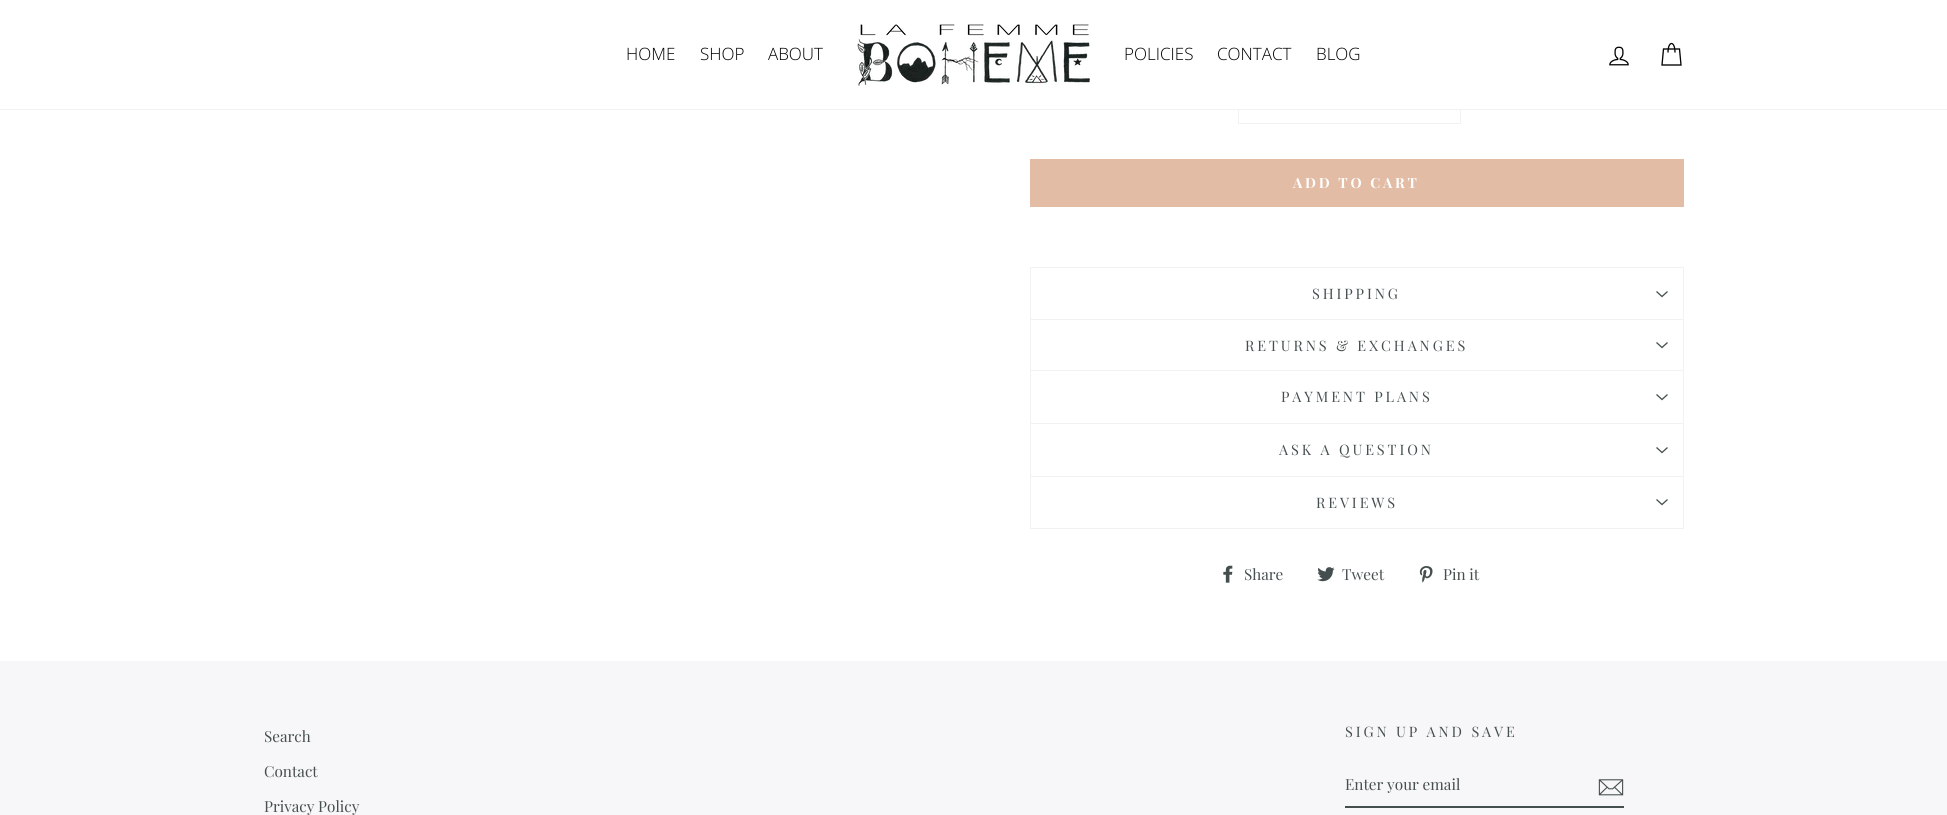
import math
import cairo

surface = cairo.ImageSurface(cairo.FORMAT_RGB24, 1947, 815)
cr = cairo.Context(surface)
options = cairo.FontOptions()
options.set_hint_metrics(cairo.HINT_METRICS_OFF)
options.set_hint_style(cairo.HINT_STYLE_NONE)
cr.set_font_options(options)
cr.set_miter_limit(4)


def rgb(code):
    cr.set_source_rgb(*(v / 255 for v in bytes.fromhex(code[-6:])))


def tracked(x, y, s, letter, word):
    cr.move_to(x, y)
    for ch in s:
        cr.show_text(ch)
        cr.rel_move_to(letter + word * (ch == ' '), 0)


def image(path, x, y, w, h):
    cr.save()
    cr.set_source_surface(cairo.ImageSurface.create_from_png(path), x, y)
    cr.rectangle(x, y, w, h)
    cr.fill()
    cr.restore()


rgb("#ffffff")
cr.paint()
cr.rectangle(1238.5, 79.5, 222, 44)
rgb("#f2f2f2")
cr.set_line_width(1)
cr.stroke()
rgb("#ffffff")
cr.rectangle(1238, 79, 223, 30)
cr.fill()
rgb("#f2f2f2")
cr.rectangle(0, 109, 1947, 1)
cr.fill()
image("img/1.png", 857, 24, 233, 62)
image("img/2.png", 1609, 46, 20, 20)
cr.new_path()
cr.move_to(1668, 52.5)
cr.curve_to(1668, 40.5, 1675, 40.5, 1675, 52.5)
cr.move_to(1663.5, 49)
cr.line_to(1679.5, 49)
cr.line_to(1681, 65)
cr.line_to(1662, 65)
cr.close_path()
rgb("#000000")
cr.set_line_width(1.3)
cr.stroke()
for x, y, w, h, color in [
    (1030, 159, 654, 48, "#e2bca5"),
    (1030, 528, 654, 1, "#f2f2f2"),
    (1030, 267, 654, 1, "#f2f2f2"),
    (1683, 267, 1, 53, "#f2f2f2"),
    (1030, 267, 1, 53, "#f2f2f2"),
]:
    rgb(color)
    cr.rectangle(x, y, w, h)
    cr.fill()
cr.new_path()
cr.move_to(1656.5, 291.5)
cr.line_to(1662, 296.5)
cr.line_to(1667.5, 291.5)
rgb("#454e4e")
cr.stroke()
for x, y, w, h, color in [
    (1030, 319, 654, 1, "#f2f2f2"),
    (1683, 319, 1, 52, "#f2f2f2"),
    (1030, 319, 1, 52, "#f2f2f2"),
]:
    rgb(color)
    cr.rectangle(x, y, w, h)
    cr.fill()
cr.new_path()
cr.move_to(1656.5, 342.5)
cr.line_to(1662, 347.5)
cr.line_to(1667.5, 342.5)
rgb("#454e4e")
cr.stroke()
for x, y, w, h, color in [
    (1030, 370, 654, 1, "#f2f2f2"),
    (1683, 370, 1, 53, "#f2f2f2"),
    (1030, 370, 1, 53, "#f2f2f2"),
]:
    rgb(color)
    cr.rectangle(x, y, w, h)
    cr.fill()
cr.new_path()
cr.move_to(1656.5, 394.5)
cr.line_to(1662, 399.5)
cr.line_to(1667.5, 394.5)
rgb("#454e4e")
cr.stroke()
for x, y, w, h, color in [
    (1030, 423, 654, 1, "#f2f2f2"),
    (1683, 423, 1, 53, "#f2f2f2"),
    (1030, 423, 1, 53, "#f2f2f2"),
]:
    rgb(color)
    cr.rectangle(x, y, w, h)
    cr.fill()
cr.new_path()
cr.move_to(1656.5, 447.5)
cr.line_to(1662, 452.5)
cr.line_to(1667.5, 447.5)
rgb("#454e4e")
cr.stroke()
for x, y, w, h, color in [
    (1030, 476, 654, 1, "#f2f2f2"),
    (1683, 476, 1, 52, "#f2f2f2"),
    (1030, 476, 1, 52, "#f2f2f2"),
]:
    rgb(color)
    cr.rectangle(x, y, w, h)
    cr.fill()
cr.new_path()
cr.move_to(1656.5, 499.5)
cr.line_to(1662, 504.5)
cr.line_to(1667.5, 499.5)
rgb("#454e4e")
cr.stroke()
image("img/3.png", 1223, 565, 10, 18)
image("img/4.png", 1317, 567, 18, 15)
image("img/5.png", 1419, 566, 14, 17)
rgb("#f7f7f9")
cr.rectangle(0, 661, 1947, 154)
cr.fill()
rgb("#454e4e")
cr.rectangle(1345, 806, 279, 2)
cr.fill()
image("img/6.png", 1598, 779, 26, 17)
cr.select_font_face("Open Sans Light")
cr.set_font_size(17)
rgb("#000000")
for x, y, s in [
    (626, 60, "HOME"),
    (700, 60, "SHOP"),
    (768, 60, "ABOUT"),
    (1124, 60, "POLICIES"),
    (1217, 60, "CONTACT"),
    (1316, 60, "BLOG"),
]:
    cr.move_to(x, y)
    cr.show_text(s)
cr.select_font_face("Playfair Display", cairo.FONT_SLANT_NORMAL, cairo.FONT_WEIGHT_BOLD)
cr.set_font_size(14)
rgb("#ffffff")
tracked(1293, 188, "ADD TO CART", 2.75, 0)
cr.select_font_face("Playfair Display")
cr.set_font_size(14.4)
rgb("#454e4e")
for x, y, s in [
    (1312, 299, "SHIPPING"),
    (1245, 351, "RETURNS & EXCHANGES"),
    (1281, 402, "PAYMENT PLANS"),
    (1279, 455, "ASK A QUESTION"),
    (1316, 508, "REVIEWS"),
]:
    tracked(x, y, s, 2.9, 0)
cr.set_font_size(15.25)
for x, y, s in [
    (1244, 580, "Share"),
    (1342, 580, "Tweet"),
    (1443, 580, "Pin it"),
    (264, 742, "Search"),
    (264, 777, "Contact"),
    (264, 812, "Privacy Policy"),
]:
    cr.move_to(x, y)
    cr.show_text(s)
cr.set_font_size(14.4)
tracked(1345, 737, "SIGN UP AND SAVE", 2.9, 0)
cr.set_font_size(15.25)
cr.move_to(1345, 790)
cr.show_text("Enter your email")
surface.write_to_png("page.png")
